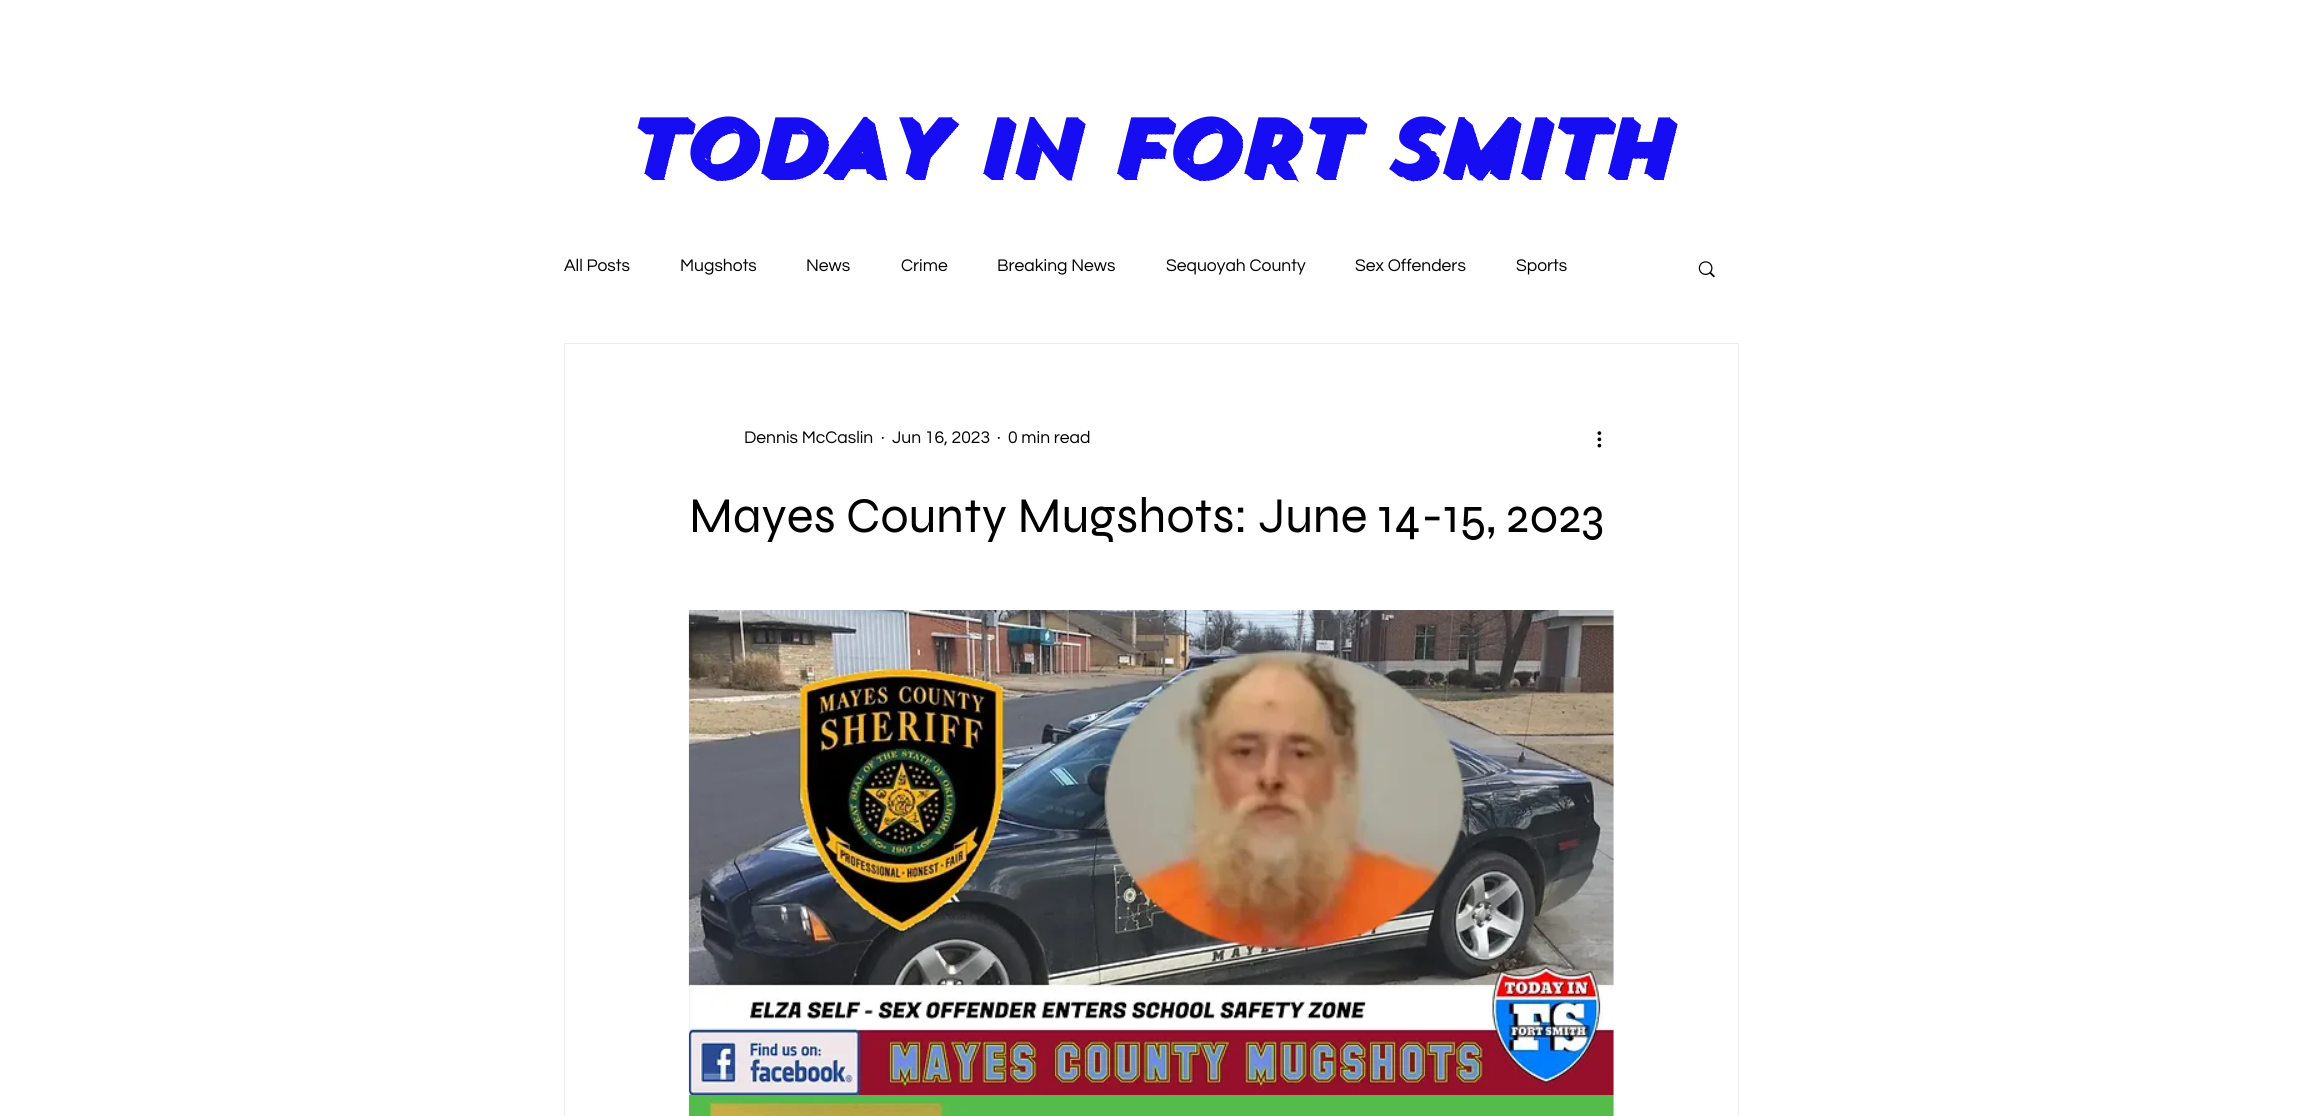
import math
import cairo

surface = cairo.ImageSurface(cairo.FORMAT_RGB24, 2302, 1116)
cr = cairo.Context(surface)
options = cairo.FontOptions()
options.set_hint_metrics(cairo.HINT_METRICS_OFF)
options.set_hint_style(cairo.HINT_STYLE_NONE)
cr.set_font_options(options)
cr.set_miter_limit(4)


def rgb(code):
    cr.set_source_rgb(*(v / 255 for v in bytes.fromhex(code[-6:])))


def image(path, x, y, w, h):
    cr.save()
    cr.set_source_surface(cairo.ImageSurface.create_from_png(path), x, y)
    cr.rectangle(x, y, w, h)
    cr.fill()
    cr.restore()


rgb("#ffffff")
cr.paint()
image("img/1.png", 1698, 261, 17, 17)
cr.rectangle(564.5, 343.5, 1174, 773)
rgb("#eeecec")
cr.set_line_width(1)
cr.stroke()
image("img/2.png", 1597, 431, 5, 17)
image("img/3.png", 688, 610, 926, 485)
image("img/4.png", 688, 1095, 926, 21)
cr.select_font_face("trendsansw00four", cairo.FONT_SLANT_ITALIC, cairo.FONT_WEIGHT_BOLD)
cr.set_font_size(77.5)
rgb("#170df2")
cr.move_to(622, 174)
cr.show_text("TODAY IN FORT SMITH")
cr.select_font_face("Questrial")
cr.set_font_size(17.5)
rgb("#000000")
for x, y, s in [
    (564, 271, "All Posts"),
    (680, 271, "Mugshots"),
    (806, 271, "News"),
    (901, 271, "Crime"),
    (997, 271, "Breaking News"),
    (1166, 271, "Sequoyah County"),
    (1355, 271, "Sex Offenders"),
    (1516, 271, "Sports"),
    (744, 443, "Dennis McCaslin"),
    (881, 443, "·"),
    (892, 443, "Jun 16, 2023"),
    (997, 443, "·"),
    (1008, 443, "0 min read"),
]:
    cr.move_to(x, y)
    cr.show_text(s)
cr.select_font_face("Syne")
cr.set_font_size(50)
cr.move_to(689, 532)
cr.show_text("Mayes County Mugshots: June 14-15, 2023")
surface.write_to_png("page.png")
